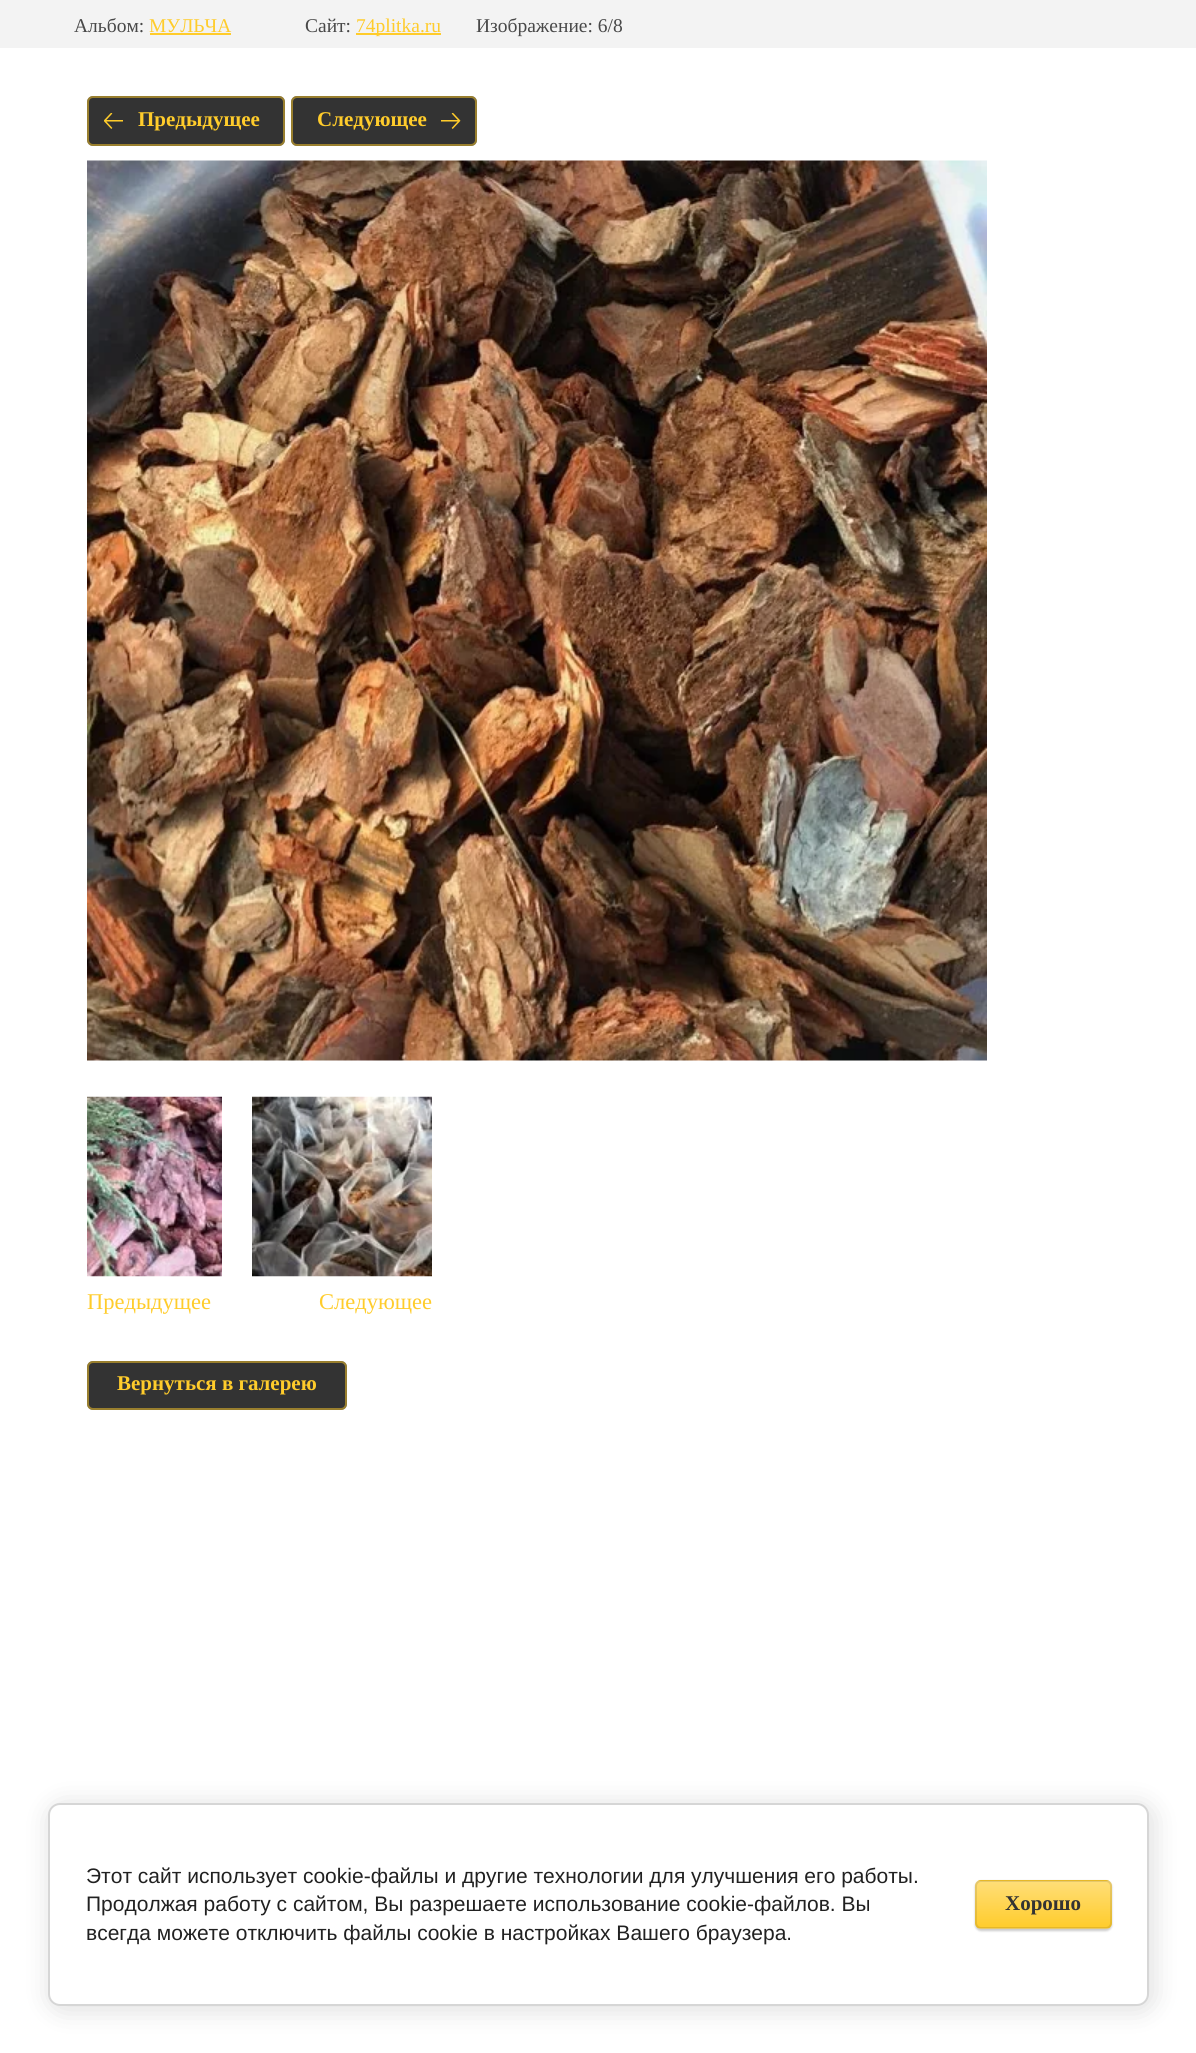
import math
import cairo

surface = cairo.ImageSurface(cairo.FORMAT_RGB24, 1196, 2053)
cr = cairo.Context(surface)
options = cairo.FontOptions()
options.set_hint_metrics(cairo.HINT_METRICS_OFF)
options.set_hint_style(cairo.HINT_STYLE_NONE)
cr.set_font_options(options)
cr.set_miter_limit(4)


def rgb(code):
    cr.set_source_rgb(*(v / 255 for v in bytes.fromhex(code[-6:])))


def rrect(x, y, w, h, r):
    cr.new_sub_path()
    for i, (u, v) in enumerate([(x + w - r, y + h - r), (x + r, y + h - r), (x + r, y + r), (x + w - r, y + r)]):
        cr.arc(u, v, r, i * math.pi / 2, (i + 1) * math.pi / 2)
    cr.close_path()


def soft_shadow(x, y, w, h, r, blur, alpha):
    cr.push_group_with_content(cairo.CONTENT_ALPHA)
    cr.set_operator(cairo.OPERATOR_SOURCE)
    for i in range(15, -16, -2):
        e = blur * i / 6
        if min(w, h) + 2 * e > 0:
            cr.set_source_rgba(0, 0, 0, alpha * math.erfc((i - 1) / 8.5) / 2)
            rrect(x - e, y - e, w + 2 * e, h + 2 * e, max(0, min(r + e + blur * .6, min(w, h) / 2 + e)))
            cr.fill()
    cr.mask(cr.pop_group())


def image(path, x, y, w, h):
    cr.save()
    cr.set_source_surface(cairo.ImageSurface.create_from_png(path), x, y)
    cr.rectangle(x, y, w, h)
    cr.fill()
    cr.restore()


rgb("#ffffff")
cr.paint()
for x, y, w, h, color in [
    (0, 0, 1196, 48, "#f3f3f3"),
    (150, 33, 81, 2, "#ffcc2b"),
    (356, 33, 85, 2, "#ffcc2b"),
]:
    rgb(color)
    cr.rectangle(x, y, w, h)
    cr.fill()
rgb("#333333")
rrect(87, 96, 198, 50, 6)
cr.fill()
rrect(88, 97, 196, 48, 5)
cr.set_source_rgba(1, 0.8, 0.169, 0.5)
cr.stroke()
image("img/1.png", 104, 113, 19, 16)
rgb("#333333")
rrect(291, 96, 186, 50, 6)
cr.fill()
rrect(292, 97, 184, 48, 5)
cr.set_source_rgba(1, 0.8, 0.169, 0.5)
cr.stroke()
image("img/2.png", 441, 113, 20, 16)
image("img/3.png", 87, 160, 900, 901)
image("img/4.png", 87, 1096, 135, 181)
image("img/5.png", 252, 1096, 180, 181)
rgb("#333333")
rrect(87, 1361, 260, 49, 6)
cr.fill()
rrect(88, 1362, 258, 47, 5)
cr.set_source_rgba(1, 0.8, 0.169, 0.5)
cr.stroke()
rgb("#000000")
soft_shadow(51, 1806, 1101, 203, 12, 13.5, 0.14)
rgb("#ffffff")
rrect(49, 1804, 1099, 201, 11)
cr.fill_preserve()
rgb("#d6d6d6")
cr.stroke()
rgb("#000000")
soft_shadow(975, 1881, 137, 50, 6, 1, 0.2)
cr.save()
rrect(975, 1880, 137, 49, 6)
cr.clip()
gradient = cairo.LinearGradient(1043, 1835, 1043, 1881)
gradient.add_color_stop_rgba(0, 1, 0.871, 0.471, 1)
gradient.add_color_stop_rgba(1, 1, 0.8, 0.169, 1)
cr.set_source(gradient)
cr.rectangle(975, 1880, 137, 1)
cr.fill()
gradient = cairo.LinearGradient(1043, 1881, 1043, 1928)
gradient.add_color_stop_rgba(0, 1, 0.871, 0.471, 1)
gradient.add_color_stop_rgba(1, 1, 0.8, 0.169, 1)
cr.set_source(gradient)
cr.rectangle(975, 1881, 137, 47)
cr.fill()
gradient = cairo.LinearGradient(1043, 1928, 1043, 1974)
gradient.add_color_stop_rgba(0, 1, 0.871, 0.471, 1)
gradient.add_color_stop_rgba(1, 1, 0.8, 0.169, 1)
cr.set_source(gradient)
cr.rectangle(975, 1928, 137, 1)
cr.fill()
cr.restore()
rrect(976, 1881, 135, 47, 5)
cr.set_source_rgba(0, 0, 0, 0.1)
cr.stroke()
cr.select_font_face("Liberation Serif")
cr.set_font_size(19.5)
rgb("#484848")
cr.move_to(74, 32)
cr.show_text("Альбом:")
rgb("#ffcc2b")
cr.move_to(149, 32)
cr.show_text("МУЛЬЧА")
rgb("#484848")
cr.move_to(305, 32)
cr.show_text("Сайт:")
rgb("#ffcc2b")
cr.move_to(356, 32)
cr.show_text("74plitka.ru")
rgb("#484848")
cr.move_to(476, 32)
cr.show_text("Изображение: 6/8")
cr.select_font_face("Liberation Serif", cairo.FONT_SLANT_NORMAL, cairo.FONT_WEIGHT_BOLD)
cr.set_font_size(21)
rgb("#ffcc2b")
cr.move_to(138, 126)
cr.show_text("Предыдущее")
cr.move_to(317, 126)
cr.show_text("Следующее")
cr.select_font_face("Liberation Serif")
cr.set_font_size(22.5)
cr.move_to(87, 1309)
cr.show_text("Предыдущее")
cr.move_to(319, 1309)
cr.show_text("Следующее")
cr.select_font_face("Liberation Serif", cairo.FONT_SLANT_NORMAL, cairo.FONT_WEIGHT_BOLD)
cr.set_font_size(21)
cr.move_to(117, 1390)
cr.show_text("Вернуться в галерею")
cr.select_font_face("Liberation Sans")
rgb("#212121")
for x, y, s in [
    (86, 1883, "Этот сайт использует cookie-файлы и другие технологии для улучшения его работы."),
    (86, 1911, "Продолжая работу с сайтом, Вы разрешаете использование cookie-файлов. Вы"),
    (86, 1940, "всегда можете отключить файлы cookie в настройках Вашего браузера."),
]:
    cr.move_to(x, y)
    cr.show_text(s)
cr.select_font_face("Liberation Serif", cairo.FONT_SLANT_NORMAL, cairo.FONT_WEIGHT_BOLD)
rgb("#333333")
cr.move_to(1005, 1910)
cr.show_text("Хорошо")
surface.write_to_png("page.png")
